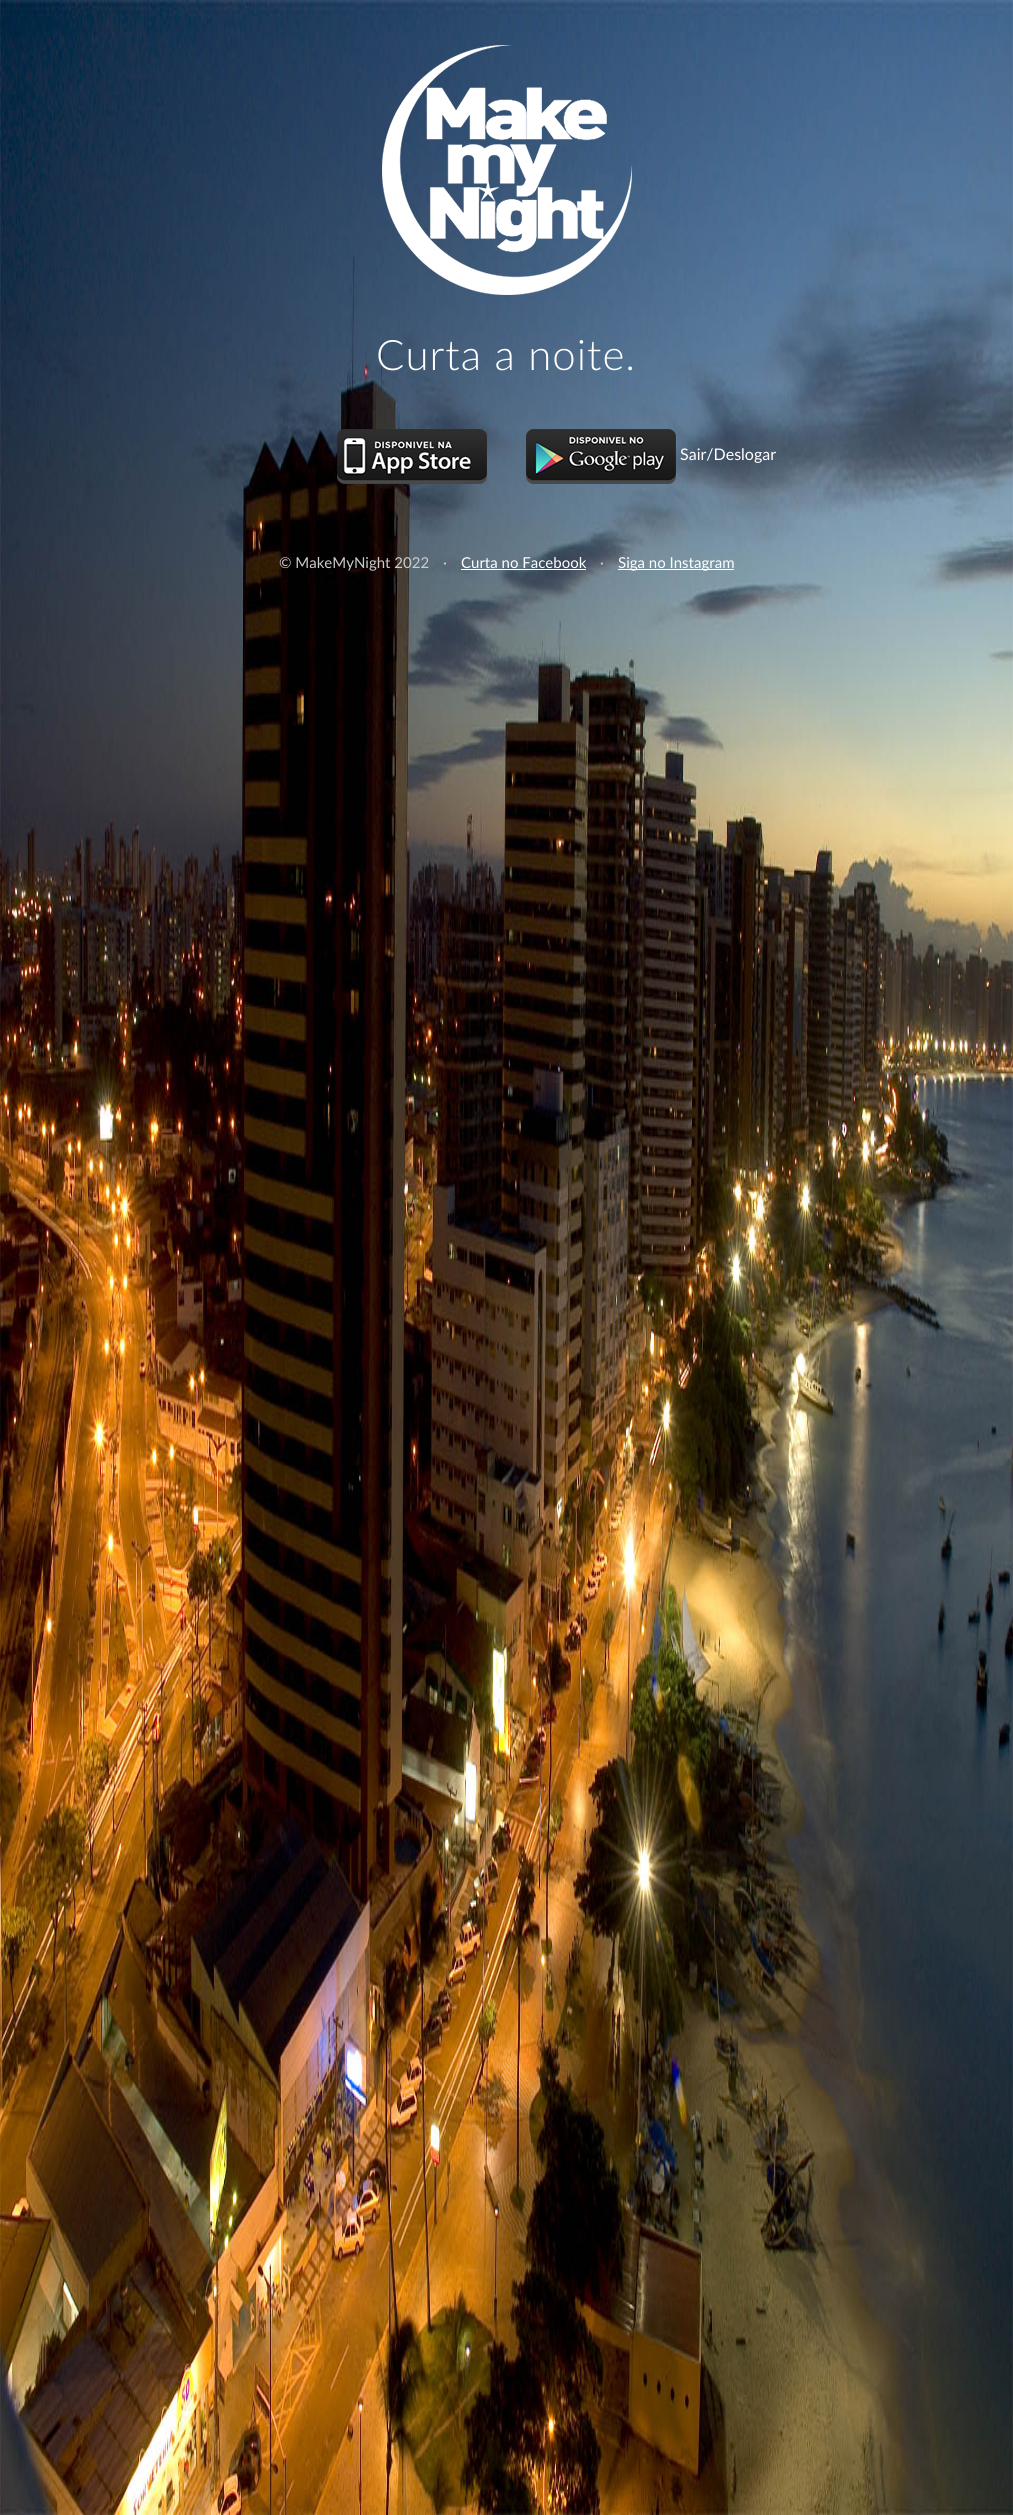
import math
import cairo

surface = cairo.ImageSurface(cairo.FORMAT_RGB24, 1013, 2515)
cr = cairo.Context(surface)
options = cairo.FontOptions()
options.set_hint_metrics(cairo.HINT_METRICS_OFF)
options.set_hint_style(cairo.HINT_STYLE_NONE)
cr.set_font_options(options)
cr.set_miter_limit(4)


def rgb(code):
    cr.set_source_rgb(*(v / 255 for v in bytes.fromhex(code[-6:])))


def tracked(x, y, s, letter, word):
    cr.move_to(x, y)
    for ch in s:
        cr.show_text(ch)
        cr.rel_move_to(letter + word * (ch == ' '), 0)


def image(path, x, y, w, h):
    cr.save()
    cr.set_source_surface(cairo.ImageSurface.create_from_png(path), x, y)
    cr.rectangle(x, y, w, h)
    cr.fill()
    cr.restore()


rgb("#ffffff")
cr.paint()
image("img/1.png", 0, 0, 1013, 2515)
image("img/2.png", 382, 45, 250, 250)
image("img/3.png", 337, 429, 150, 55)
image("img/4.png", 526, 429, 150, 55)
rgb("#ffffff")
cr.rectangle(461, 569, 125, 1)
cr.fill()
cr.rectangle(618, 569, 116, 1)
cr.fill()
cr.select_font_face("Lato Light")
cr.set_font_size(42)
tracked(376, 370, "Curta a noite.", 1, 0)
cr.select_font_face("Lato")
cr.set_font_size(16)
cr.move_to(680, 460)
cr.show_text("Sair/Deslogar")
cr.set_font_size(15)
rgb("#cccccc")
cr.move_to(279, 568)
cr.show_text("© MakeMyNight 2022")
cr.move_to(443, 568)
cr.show_text("·")
rgb("#ffffff")
cr.move_to(461, 568)
cr.show_text("Curta no Facebook")
rgb("#cccccc")
cr.move_to(600, 568)
cr.show_text("·")
rgb("#ffffff")
cr.move_to(618, 568)
cr.show_text("Siga no Instagram")
surface.write_to_png("page.png")
